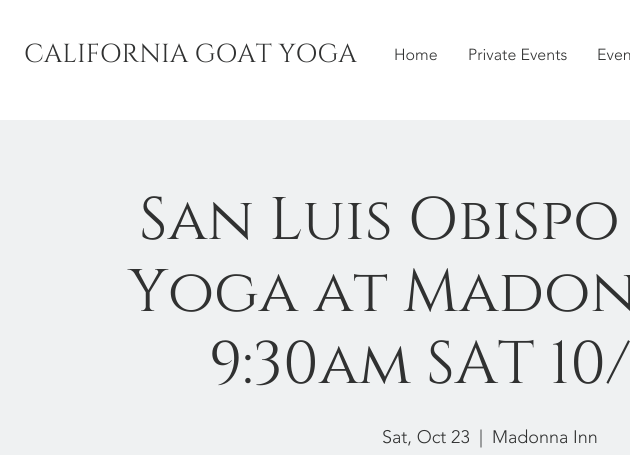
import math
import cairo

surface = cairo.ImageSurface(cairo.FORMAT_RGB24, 630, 455)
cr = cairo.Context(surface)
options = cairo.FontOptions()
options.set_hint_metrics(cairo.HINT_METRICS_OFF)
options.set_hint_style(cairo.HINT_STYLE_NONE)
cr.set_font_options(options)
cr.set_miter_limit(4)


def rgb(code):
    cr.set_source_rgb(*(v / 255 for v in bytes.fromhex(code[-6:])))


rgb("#ffffff")
cr.paint()
rgb("#eff1f2")
cr.rectangle(0, 120, 630, 335)
cr.fill()
cr.select_font_face("Cinzel")
cr.set_font_size(26)
rgb("#303131")
cr.move_to(24, 62)
cr.show_text("CALIFORNIA GOAT YOGA")
cr.select_font_face("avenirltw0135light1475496 Light")
cr.set_font_size(16)
for x, y, s in [
    (394, 60, "Home"),
    (468, 60, "Private Events"),
    (597, 60, "Even"),
]:
    cr.move_to(x, y)
    cr.show_text(s)
cr.select_font_face("Cinzel")
cr.set_font_size(60)
for x, y, s in [
    (139, 239, "San Luis Obispo"),
    (128, 311, "Yoga at Madon"),
    (209, 383, "9:30am SAT 10/"),
]:
    cr.move_to(x, y)
    cr.show_text(s)
cr.select_font_face("avenirltw0135light1475496 Light")
cr.set_font_size(18)
for x, y, s in [
    (382, 443, "Sat, Oct 23"),
    (479, 443, "|"),
    (492, 443, "Madonna Inn"),
]:
    cr.move_to(x, y)
    cr.show_text(s)
surface.write_to_png("page.png")
